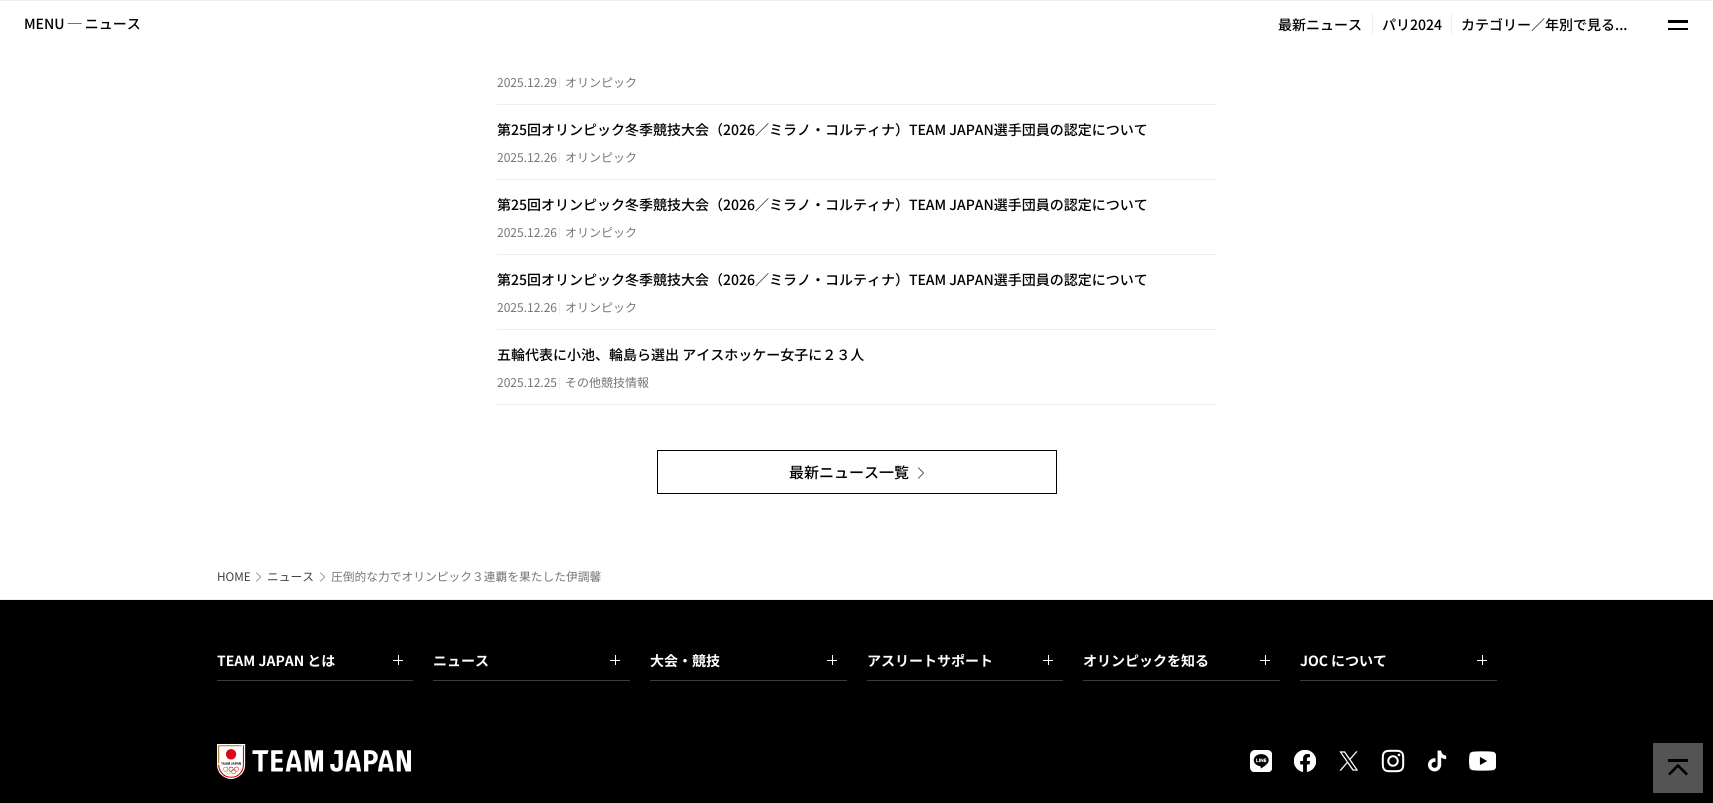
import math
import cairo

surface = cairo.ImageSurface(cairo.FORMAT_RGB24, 1713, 803)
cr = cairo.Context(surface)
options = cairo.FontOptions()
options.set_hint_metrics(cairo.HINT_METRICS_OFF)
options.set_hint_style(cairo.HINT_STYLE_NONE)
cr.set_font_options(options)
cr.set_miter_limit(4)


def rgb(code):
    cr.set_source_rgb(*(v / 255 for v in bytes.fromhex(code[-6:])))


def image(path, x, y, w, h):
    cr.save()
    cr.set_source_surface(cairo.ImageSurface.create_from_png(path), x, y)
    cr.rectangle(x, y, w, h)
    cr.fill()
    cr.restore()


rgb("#ffffff")
cr.paint()
for x, y, w, h, color in [
    (0, 0, 1713, 1, "#efefef"),
    (1372, 14, 1, 21, "#efefef"),
    (1451, 14, 1, 21, "#efefef"),
    (1668, 20, 20, 3, "#000000"),
    (1668, 28, 20, 2, "#000000"),
    (559, 77, 1, 12, "#efefef"),
    (497, 104, 720, 1, "#efefef"),
    (559, 152, 1, 12, "#efefef"),
    (497, 179, 720, 1, "#efefef"),
    (559, 227, 1, 12, "#efefef"),
    (497, 254, 720, 1, "#efefef"),
    (559, 302, 1, 12, "#efefef"),
    (497, 329, 720, 1, "#efefef"),
    (497, 404, 720, 1, "#efefef"),
    (559, 377, 1, 12, "#efefef"),
]:
    rgb(color)
    cr.rectangle(x, y, w, h)
    cr.fill()
cr.rectangle(657.5, 450.5, 399, 43)
rgb("#000000")
cr.set_line_width(1)
cr.stroke()
image("img/1.png", 918, 467, 6, 12)
image("img/2.png", 256, 572, 5, 10)
image("img/2.png", 320, 572, 5, 10)
for x, y, w, h, color in [
    (0, 600, 1713, 203, "#000000"),
    (0, 599, 1713, 1, "#efefef"),
    (217, 680, 196, 1, "#3c3c3c"),
    (393, 660, 10, 1, "#ffffff"),
    (398, 655, 1, 10, "#ffffff"),
    (433, 680, 197, 1, "#3c3c3c"),
    (610, 660, 10, 1, "#ffffff"),
    (615, 655, 1, 10, "#ffffff"),
    (650, 680, 197, 1, "#3c3c3c"),
    (827, 660, 10, 1, "#ffffff"),
    (832, 655, 1, 10, "#ffffff"),
    (867, 680, 196, 1, "#3c3c3c"),
    (1043, 660, 10, 1, "#ffffff"),
    (1048, 655, 1, 10, "#ffffff"),
    (1083, 680, 197, 1, "#3c3c3c"),
    (1260, 660, 10, 1, "#ffffff"),
    (1265, 655, 1, 10, "#ffffff"),
    (1300, 680, 197, 1, "#3c3c3c"),
    (1477, 660, 10, 1, "#ffffff"),
    (1482, 655, 1, 10, "#ffffff"),
]:
    rgb(color)
    cr.rectangle(x, y, w, h)
    cr.fill()
image("img/3.png", 217, 744, 194, 35)
image("img/4.png", 1250, 750, 22, 22)
image("img/5.png", 1294, 750, 22, 22)
image("img/6.png", 1339, 751, 20, 20)
image("img/7.png", 1381, 749, 24, 24)
image("img/8.png", 1427, 750, 20, 22)
image("img/9.png", 1469, 751, 27, 20)
rgb("#545454")
cr.rectangle(1653, 743, 50, 50)
cr.fill()
image("img/10.png", 1668, 759, 20, 17)
cr.select_font_face("Noto Sans JP Medium")
cr.set_font_size(14)
rgb("#000000")
for x, y, s in [
    (24, 29, "MENU ─ ニュース"),
    (1278, 30, "最新ニュース"),
    (1382, 30, "パリ2024"),
    (1461, 30, "カテゴリー／年別で見る..."),
]:
    cr.move_to(x, y)
    cr.show_text(s)
cr.select_font_face("Noto Sans JP")
cr.set_font_size(12)
rgb("#757577")
cr.move_to(497, 87)
cr.show_text("2025.12.29")
cr.move_to(565, 87)
cr.show_text("オリンピック")
cr.select_font_face("Noto Sans JP Medium")
cr.set_font_size(14)
rgb("#000000")
cr.move_to(497, 135)
cr.show_text("第25回オリンピック冬季競技大会（2026／ミラノ・コルティナ）TEAM JAPAN選手団員の認定について")
cr.select_font_face("Noto Sans JP")
cr.set_font_size(12)
rgb("#757577")
cr.move_to(497, 162)
cr.show_text("2025.12.26")
cr.move_to(565, 162)
cr.show_text("オリンピック")
cr.select_font_face("Noto Sans JP Medium")
cr.set_font_size(14)
rgb("#000000")
cr.move_to(497, 210)
cr.show_text("第25回オリンピック冬季競技大会（2026／ミラノ・コルティナ）TEAM JAPAN選手団員の認定について")
cr.select_font_face("Noto Sans JP")
cr.set_font_size(12)
rgb("#757577")
cr.move_to(497, 237)
cr.show_text("2025.12.26")
cr.move_to(565, 237)
cr.show_text("オリンピック")
cr.select_font_face("Noto Sans JP Medium")
cr.set_font_size(14)
rgb("#000000")
cr.move_to(497, 285)
cr.show_text("第25回オリンピック冬季競技大会（2026／ミラノ・コルティナ）TEAM JAPAN選手団員の認定について")
cr.select_font_face("Noto Sans JP")
cr.set_font_size(12)
rgb("#757577")
cr.move_to(497, 312)
cr.show_text("2025.12.26")
cr.move_to(565, 312)
cr.show_text("オリンピック")
cr.select_font_face("Noto Sans JP Medium")
cr.set_font_size(14)
rgb("#000000")
cr.move_to(497, 360)
cr.show_text("五輪代表に小池、輪島ら選出 アイスホッケー女子に２３人")
cr.select_font_face("Noto Sans JP")
cr.set_font_size(12)
rgb("#757577")
cr.move_to(497, 387)
cr.show_text("2025.12.25")
cr.move_to(565, 387)
cr.show_text("その他競技情報")
cr.select_font_face("Noto Sans JP Medium")
cr.set_font_size(15)
rgb("#000000")
cr.move_to(789, 478)
cr.show_text("最新ニュース一覧")
cr.select_font_face("Noto Sans JP")
cr.set_font_size(11.75)
rgb("#404045")
cr.move_to(217, 581)
cr.show_text("HOME")
cr.move_to(267, 581)
cr.show_text("ニュース")
rgb("#757577")
cr.move_to(331, 581)
cr.show_text("圧倒的な力でオリンピック３連覇を果たした伊調馨")
cr.select_font_face("Noto Sans JP", cairo.FONT_SLANT_NORMAL, cairo.FONT_WEIGHT_BOLD)
cr.set_font_size(14)
rgb("#ffffff")
for x, y, s in [
    (217, 666, "TEAM JAPAN とは"),
    (433, 666, "ニュース"),
    (650, 666, "大会・競技"),
    (867, 666, "アスリートサポート"),
    (1083, 666, "オリンピックを知る"),
    (1300, 666, "JOC について"),
]:
    cr.move_to(x, y)
    cr.show_text(s)
surface.write_to_png("page.png")
